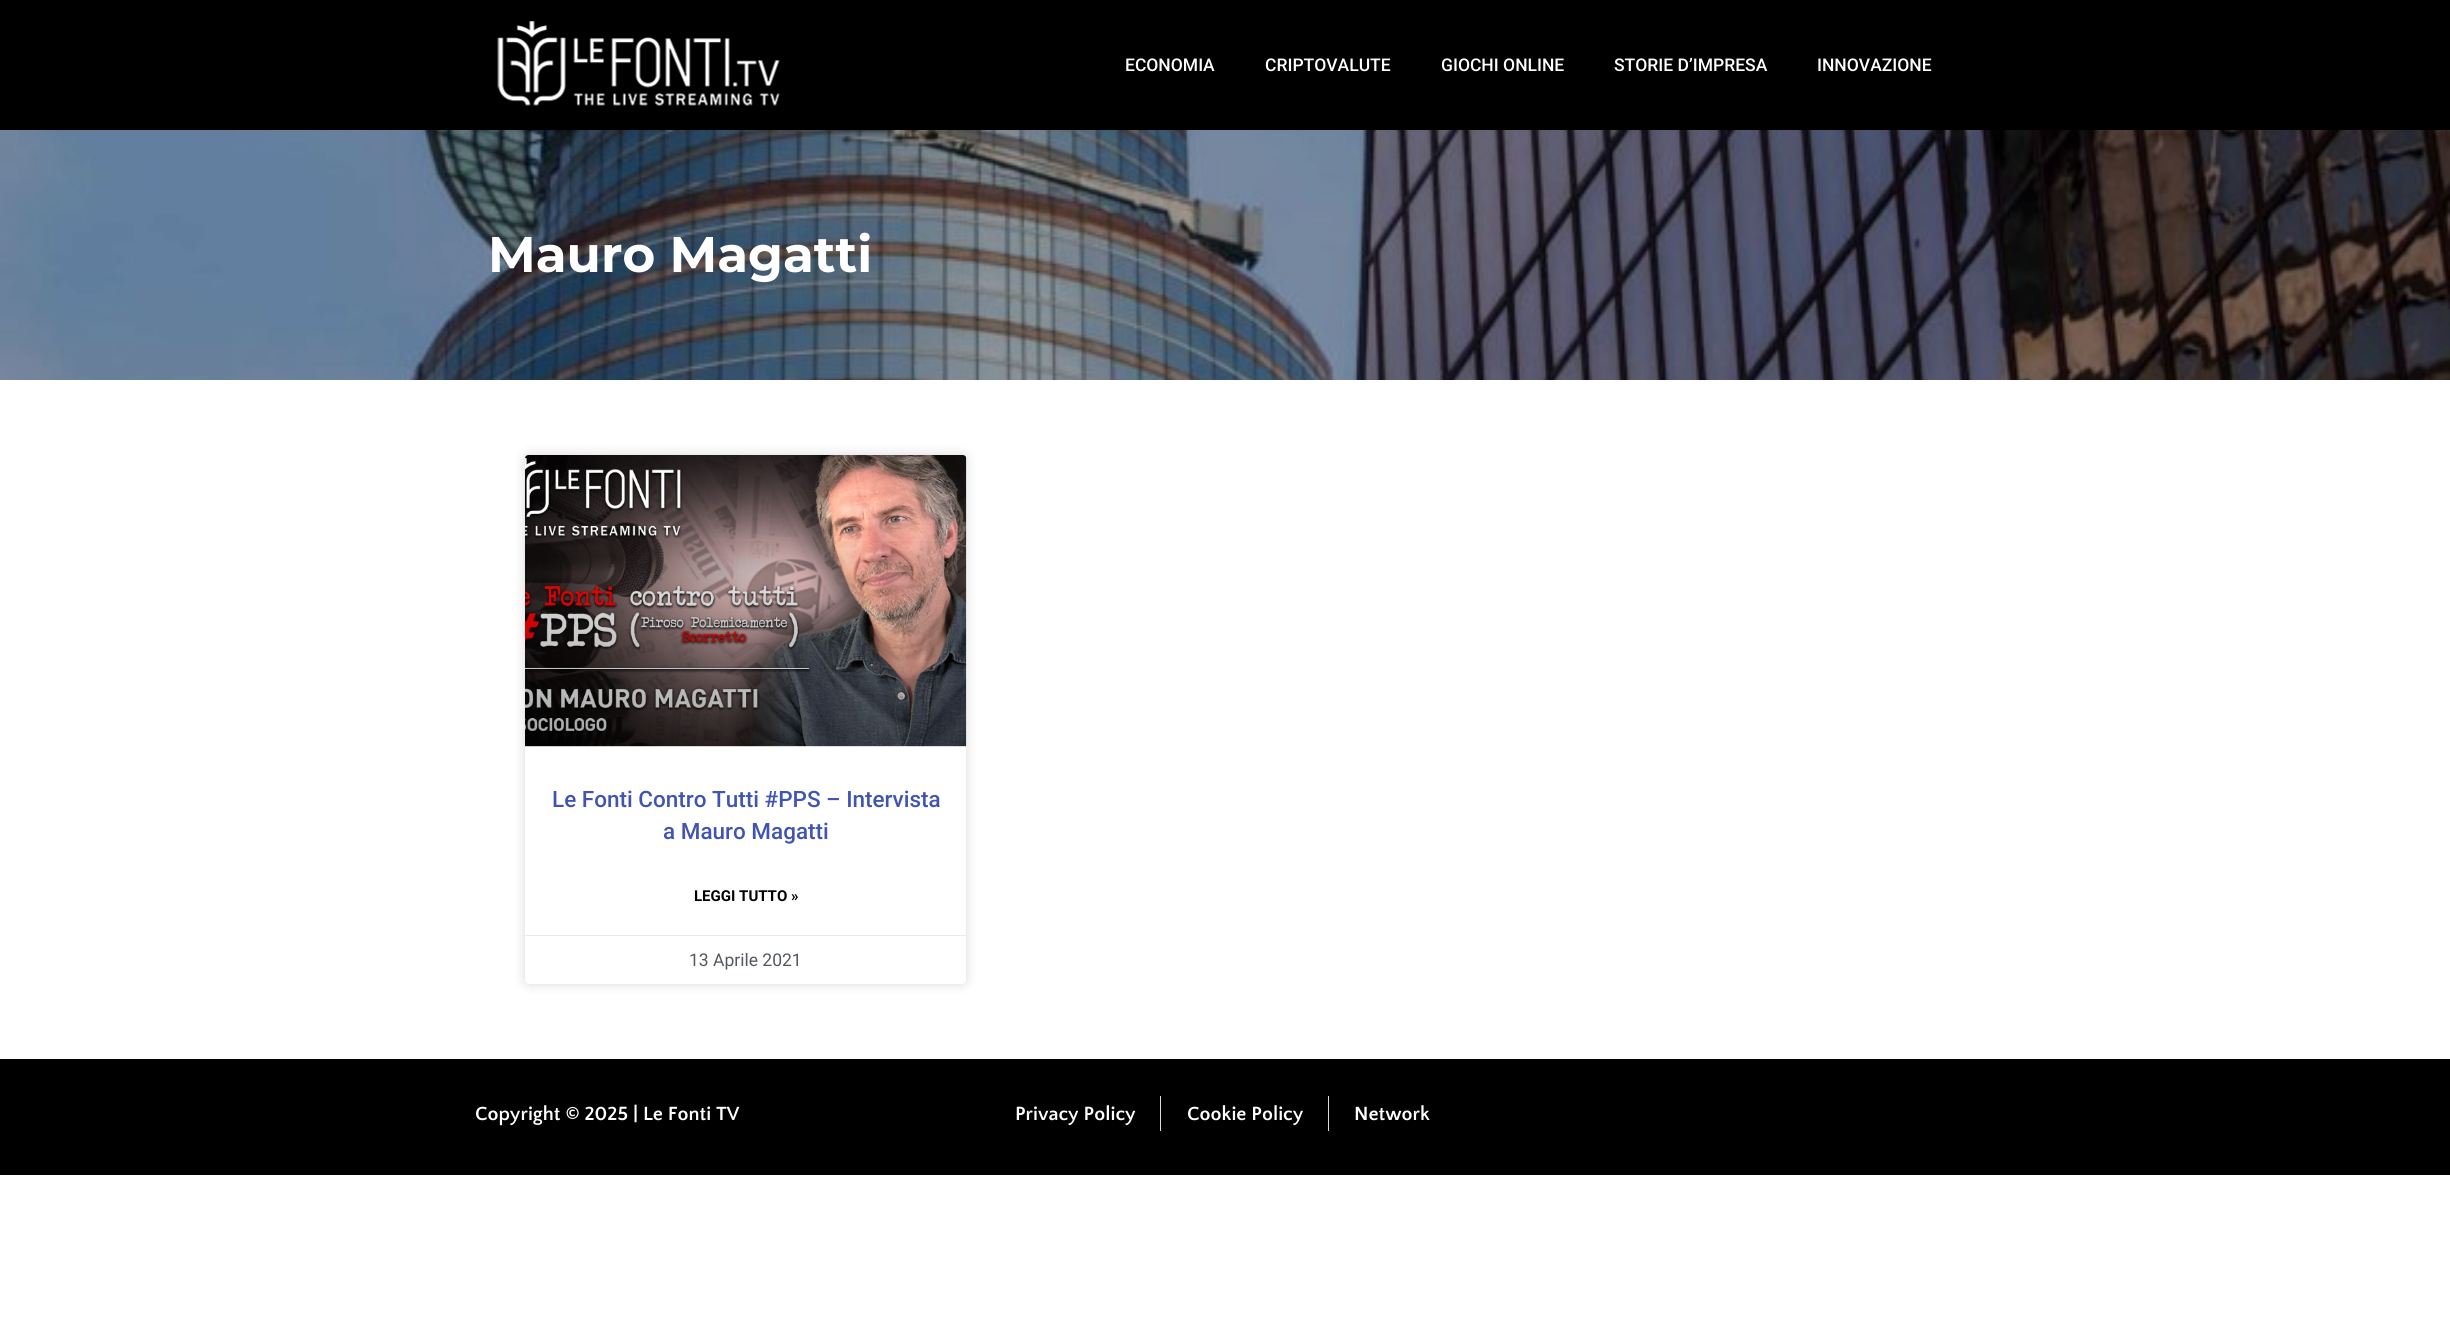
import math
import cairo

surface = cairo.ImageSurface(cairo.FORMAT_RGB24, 2450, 1330)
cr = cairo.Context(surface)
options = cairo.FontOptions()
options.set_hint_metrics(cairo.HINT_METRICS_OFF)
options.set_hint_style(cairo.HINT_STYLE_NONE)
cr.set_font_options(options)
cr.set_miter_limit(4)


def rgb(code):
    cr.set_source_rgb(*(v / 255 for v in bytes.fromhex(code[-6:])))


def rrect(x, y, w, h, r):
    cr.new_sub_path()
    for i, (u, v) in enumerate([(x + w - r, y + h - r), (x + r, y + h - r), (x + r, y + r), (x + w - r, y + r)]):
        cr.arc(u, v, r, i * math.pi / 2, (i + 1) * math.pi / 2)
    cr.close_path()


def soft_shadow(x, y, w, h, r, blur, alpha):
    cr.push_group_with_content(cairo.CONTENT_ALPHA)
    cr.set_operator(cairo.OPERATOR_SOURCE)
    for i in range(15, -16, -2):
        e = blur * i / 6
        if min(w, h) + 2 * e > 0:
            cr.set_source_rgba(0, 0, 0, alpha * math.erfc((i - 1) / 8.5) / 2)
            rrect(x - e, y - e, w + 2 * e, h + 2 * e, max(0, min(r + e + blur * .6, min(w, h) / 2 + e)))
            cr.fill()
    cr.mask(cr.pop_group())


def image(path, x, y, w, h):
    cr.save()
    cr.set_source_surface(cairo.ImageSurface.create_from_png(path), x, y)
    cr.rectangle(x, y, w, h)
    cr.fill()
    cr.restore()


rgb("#ffffff")
cr.paint()
rgb("#000000")
cr.rectangle(0, 0, 2450, 130)
cr.fill()
image("img/1.png", 497, 21, 283, 85)
image("img/2.png", 0, 130, 2450, 250)
rgb("#000000")
soft_shadow(525, 455, 441, 529, 4, 6, 0.15)
rgb("#ffffff")
rrect(525, 455, 441, 529, 4)
cr.fill()
image("img/3.png", 525, 455, 442, 292)
gradient = cairo.LinearGradient(746, 746, 746, 455)
gradient.add_color_stop_rgba(0, 0, 0, 0, 0.35)
gradient.add_color_stop_rgba(0.75, 0, 0, 0, 0)
cr.set_source(gradient)
cr.rectangle(525, 541, 441, 205)
cr.fill()
for x, y, w, h, color in [
    (525, 935, 441, 1, "#eaeaea"),
    (0, 1059, 2450, 116, "#000000"),
    (1160, 1096, 1, 35, "#dddddd"),
    (1328, 1096, 1, 35, "#dddddd"),
]:
    rgb(color)
    cr.rectangle(x, y, w, h)
    cr.fill()
cr.select_font_face("Roboto Medium")
cr.set_font_size(17.5)
rgb("#ffffff")
for x, y, s in [
    (1125, 71, "ECONOMIA"),
    (1265, 71, "CRIPTOVALUTE"),
    (1441, 71, "GIOCHI ONLINE"),
    (1614, 71, "STORIE D’IMPRESA"),
    (1817, 71, "INNOVAZIONE"),
]:
    cr.move_to(x, y)
    cr.show_text(s)
cr.select_font_face("Montserrat", cairo.FONT_SLANT_NORMAL, cairo.FONT_WEIGHT_BOLD)
cr.set_font_size(50)
cr.move_to(488, 272)
cr.show_text("Mauro Magatti")
cr.select_font_face("Roboto Medium")
cr.set_font_size(22.5)
rgb("#4054b2")
cr.move_to(552, 807)
cr.show_text("Le Fonti Contro Tutti #PPS – Intervista")
cr.move_to(663, 839)
cr.show_text("a Mauro Magatti")
cr.select_font_face("Roboto", cairo.FONT_SLANT_NORMAL, cairo.FONT_WEIGHT_BOLD)
cr.set_font_size(15)
rgb("#000000")
cr.move_to(694, 901)
cr.show_text("LEGGI TUTTO »")
cr.select_font_face("Roboto")
cr.set_font_size(17.5)
rgb("#54595f")
cr.move_to(689, 966)
cr.show_text("13 Aprile 2021")
cr.select_font_face("Quattrocento Sans", cairo.FONT_SLANT_NORMAL, cairo.FONT_WEIGHT_BOLD)
cr.set_font_size(20)
rgb("#ffffff")
for x, y, s in [
    (475, 1120, "Copyright © 2025 | Le Fonti TV"),
    (1015, 1120, "Privacy Policy"),
    (1187, 1120, "Cookie Policy"),
    (1354, 1120, "Network"),
]:
    cr.move_to(x, y)
    cr.show_text(s)
surface.write_to_png("page.png")
